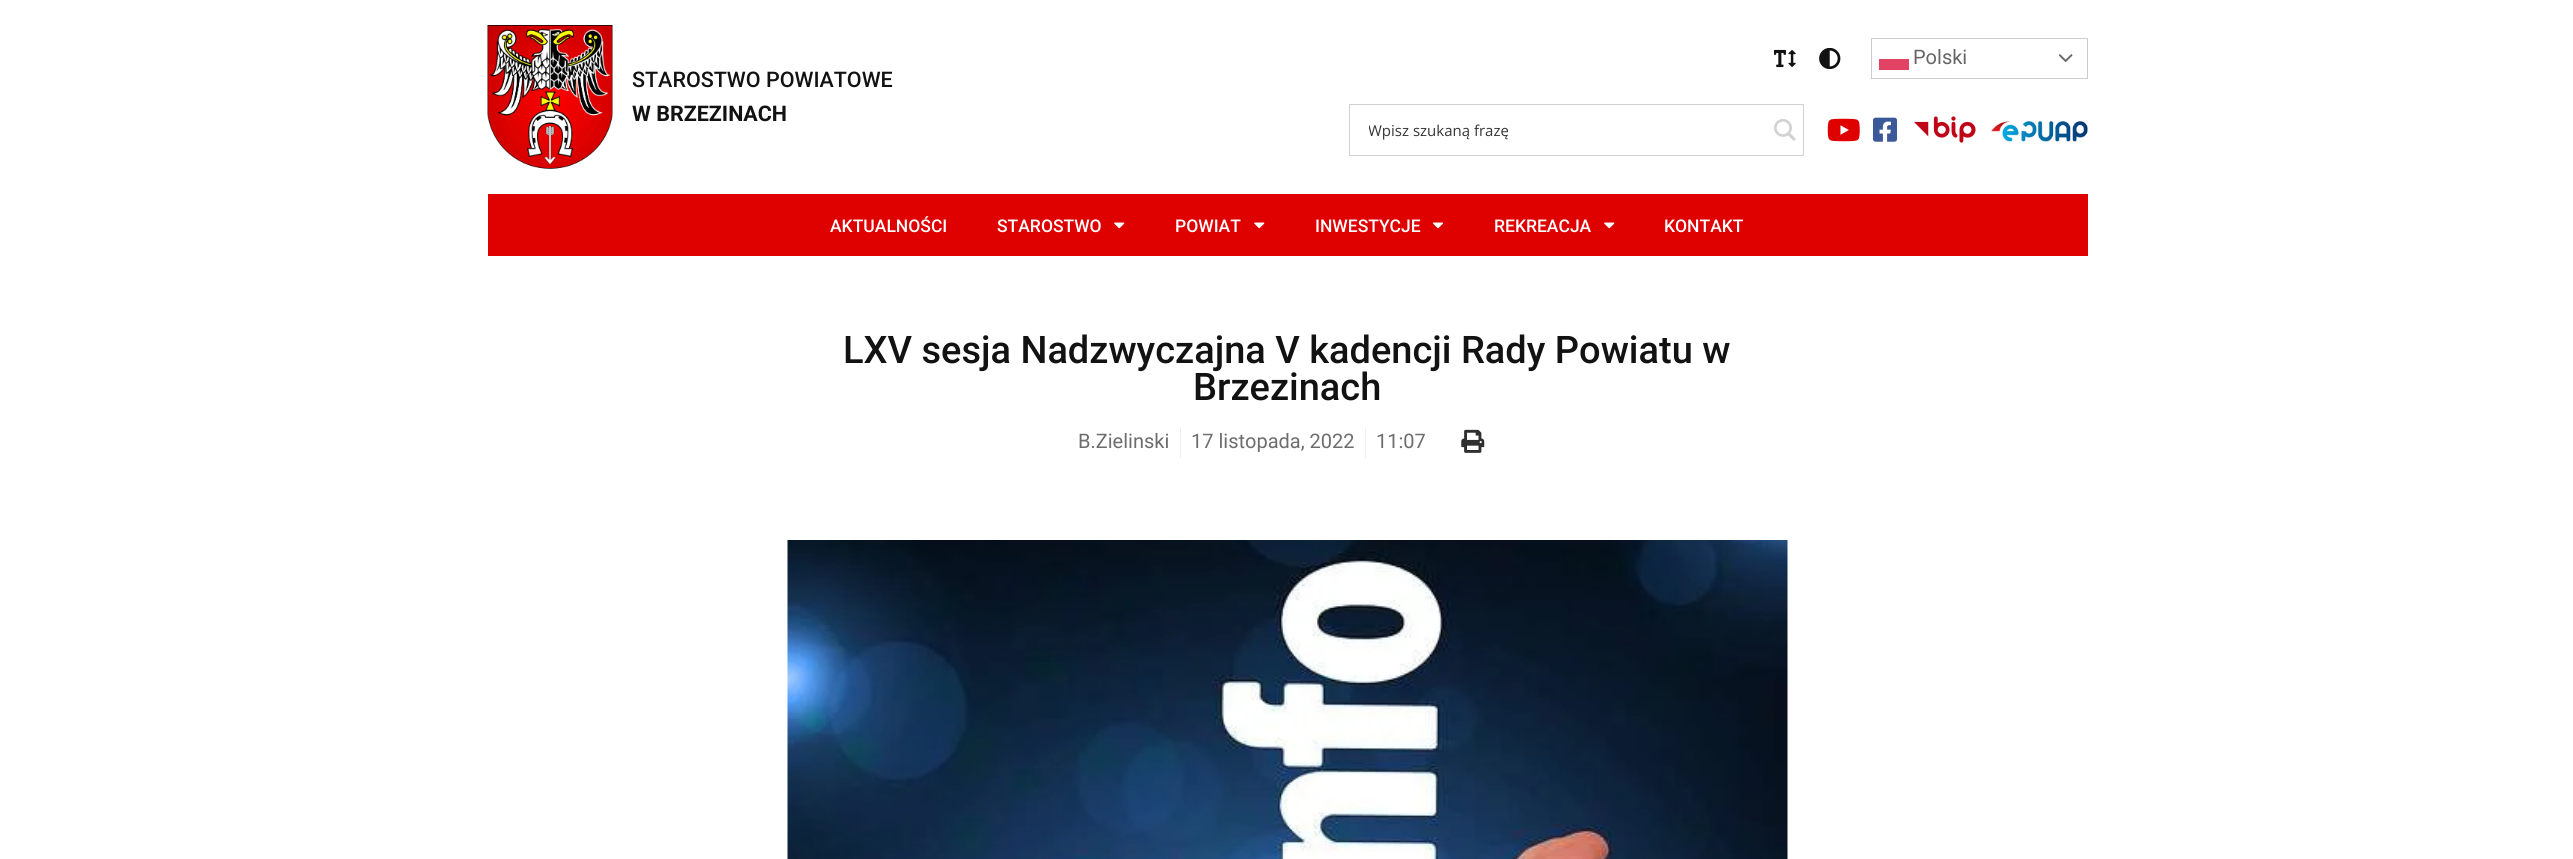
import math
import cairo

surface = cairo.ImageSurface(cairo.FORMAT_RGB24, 2573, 859)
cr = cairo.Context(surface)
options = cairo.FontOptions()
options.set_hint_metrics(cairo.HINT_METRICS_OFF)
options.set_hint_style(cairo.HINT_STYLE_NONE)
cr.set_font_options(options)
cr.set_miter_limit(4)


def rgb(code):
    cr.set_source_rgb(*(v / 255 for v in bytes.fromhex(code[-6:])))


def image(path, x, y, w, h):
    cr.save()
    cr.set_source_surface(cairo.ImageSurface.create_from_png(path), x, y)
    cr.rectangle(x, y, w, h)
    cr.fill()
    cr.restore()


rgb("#ffffff")
cr.paint()
image("img/1.png", 487, 25, 126, 144)
image("img/2.png", 1774, 49, 22, 19)
image("img/3.png", 1819, 48, 22, 21)
cr.rectangle(1871.5, 38.5, 216, 40)
rgb("#cccccc")
cr.set_line_width(1)
cr.stroke()
rgb("#e34363")
cr.rectangle(1879, 59, 30, 11)
cr.fill()
image("img/4.png", 2059, 54, 14, 9)
cr.rectangle(1349.5, 104.5, 454, 51)
rgb("#d1d1d1")
cr.stroke()
image("img/5.png", 1774, 119, 22, 22)
image("img/6.png", 1827, 118, 33, 24)
image("img/7.png", 1872, 117, 26, 25)
image("img/8.png", 1914, 116, 62, 27)
image("img/9.png", 1991, 121, 97, 21)
rgb("#df0000")
cr.rectangle(488, 194, 1600, 62)
cr.fill()
image("img/10.png", 1114, 222, 11, 7)
image("img/10.png", 1254, 222, 11, 7)
image("img/11.png", 1432, 222, 11, 7)
image("img/10.png", 1604, 222, 11, 7)
rgb("#eeeeee")
cr.rectangle(1180, 428, 1, 30)
cr.fill()
cr.rectangle(1365, 428, 1, 30)
cr.fill()
image("img/12.png", 1461, 429, 24, 24)
image("img/13.png", 787, 540, 1001, 319)
cr.select_font_face("Roboto Medium")
cr.set_font_size(21.5)
rgb("#121212")
cr.move_to(632, 87)
cr.show_text("STAROSTWO POWIATOWE")
cr.select_font_face("Roboto", cairo.FONT_SLANT_NORMAL, cairo.FONT_WEIGHT_BOLD)
cr.move_to(632, 121)
cr.show_text("W BRZEZINACH")
cr.select_font_face("Roboto")
cr.set_font_size(20)
rgb("#666666")
cr.move_to(1913, 64)
cr.show_text("Polski")
cr.save()
cr.rectangle(1369, 120, 392, 21)
cr.clip()
cr.select_font_face("Open Sans")
cr.set_font_size(15)
rgb("#363636")
cr.move_to(1368, 136)
cr.show_text("Wpisz szukaną frazę")
cr.restore()
cr.select_font_face("Roboto Medium")
cr.set_font_size(17.5)
rgb("#ffffff")
for x, y, s in [
    (830, 232, "AKTUALNOŚCI"),
    (997, 232, "STAROSTWO"),
    (1175, 232, "POWIAT"),
    (1315, 232, "INWESTYCJE"),
    (1494, 232, "REKREACJA"),
    (1664, 232, "KONTAKT"),
]:
    cr.move_to(x, y)
    cr.show_text(s)
cr.set_font_size(38)
rgb("#121212")
cr.move_to(843, 363)
cr.show_text("LXV sesja Nadzwyczajna V kadencji Rady Powiatu w")
cr.move_to(1193, 400)
cr.show_text("Brzezinach")
cr.select_font_face("Roboto")
cr.set_font_size(20)
rgb("#6d6d6d")
for x, y, s in [
    (1078, 448, "B.Zielinski"),
    (1191, 448, "17 listopada, 2022"),
    (1376, 448, "11:07"),
]:
    cr.move_to(x, y)
    cr.show_text(s)
surface.write_to_png("page.png")
